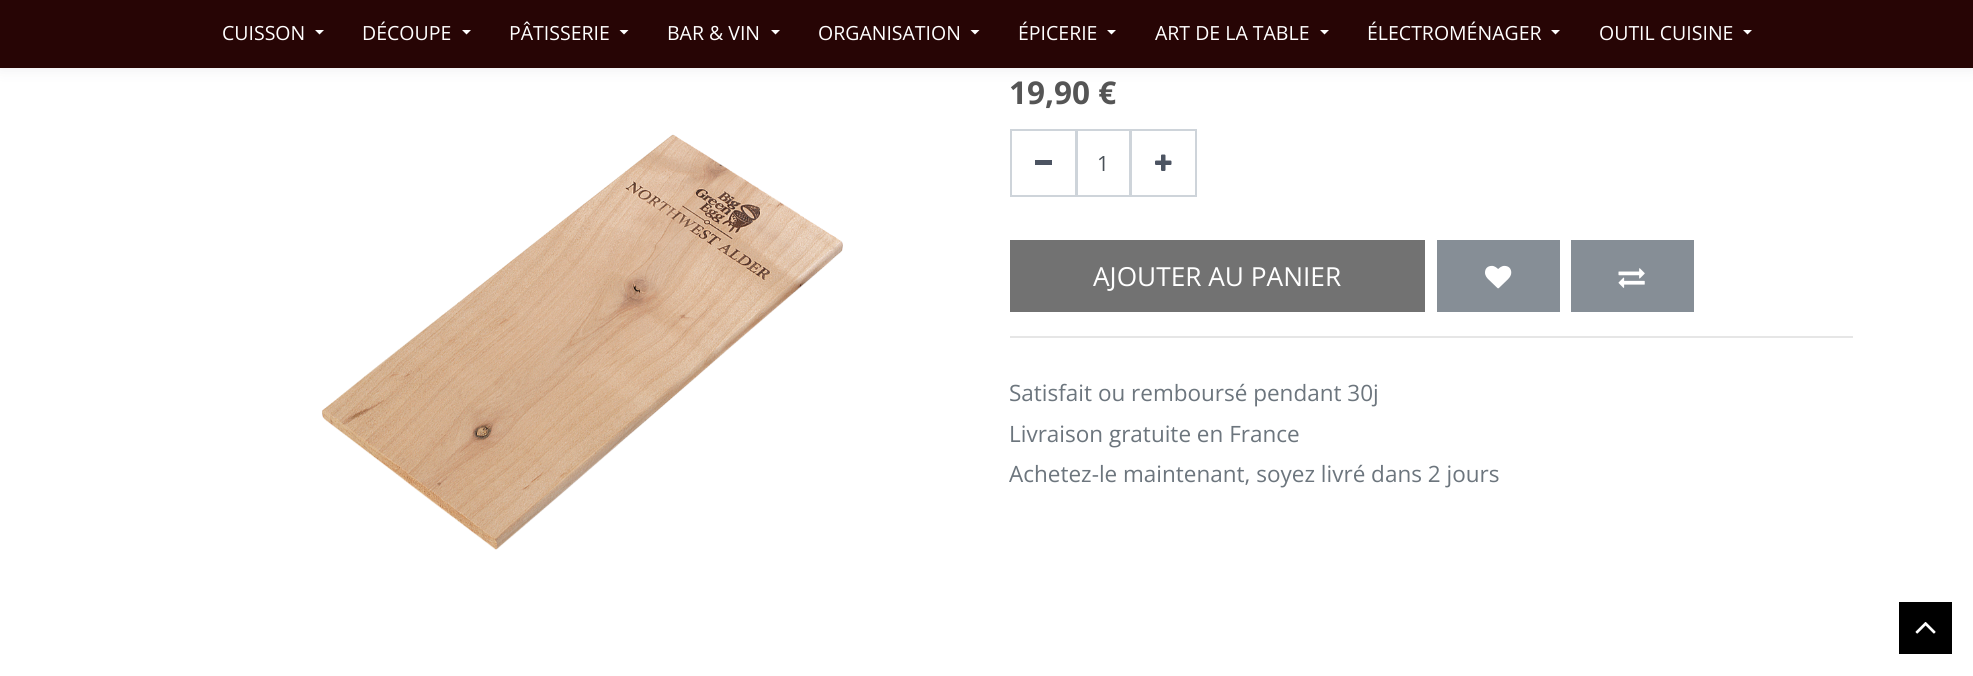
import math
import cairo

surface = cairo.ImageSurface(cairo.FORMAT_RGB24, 1973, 676)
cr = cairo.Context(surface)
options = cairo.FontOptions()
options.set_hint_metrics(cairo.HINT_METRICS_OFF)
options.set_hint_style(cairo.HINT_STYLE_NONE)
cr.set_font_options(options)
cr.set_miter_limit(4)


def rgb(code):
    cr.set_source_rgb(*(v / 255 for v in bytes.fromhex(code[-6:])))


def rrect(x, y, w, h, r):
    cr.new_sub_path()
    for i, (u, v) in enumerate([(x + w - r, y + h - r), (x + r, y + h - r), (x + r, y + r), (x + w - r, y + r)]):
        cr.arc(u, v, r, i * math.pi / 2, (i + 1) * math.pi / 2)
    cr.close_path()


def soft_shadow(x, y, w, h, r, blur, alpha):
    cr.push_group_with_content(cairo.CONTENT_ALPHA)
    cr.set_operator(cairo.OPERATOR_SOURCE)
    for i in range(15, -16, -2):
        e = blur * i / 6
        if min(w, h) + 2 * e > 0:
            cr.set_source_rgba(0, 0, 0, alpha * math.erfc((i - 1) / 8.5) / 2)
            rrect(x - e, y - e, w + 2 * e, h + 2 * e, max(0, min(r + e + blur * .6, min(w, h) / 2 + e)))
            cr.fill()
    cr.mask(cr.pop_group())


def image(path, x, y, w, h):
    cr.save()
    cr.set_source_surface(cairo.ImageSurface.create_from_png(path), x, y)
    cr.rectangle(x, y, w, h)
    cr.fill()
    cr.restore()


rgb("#ffffff")
cr.paint()
rgb("#32325d")
soft_shadow(0, 0, 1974, 68, 0, 7.5, 0.1)
rgb("#270505")
cr.rectangle(0, 0, 1973, 68)
cr.fill()
rgb("#ffffff")
cr.new_path()
cr.move_to(315, 30)
cr.line_to(324, 30)
cr.line_to(319.5, 34.5)
cr.close_path()
cr.fill()
cr.new_path()
cr.move_to(462, 30)
cr.line_to(471, 30)
cr.line_to(466.5, 34.5)
cr.close_path()
cr.fill()
cr.new_path()
cr.move_to(619.5, 30)
cr.line_to(628.5, 30)
cr.line_to(624, 34.5)
cr.close_path()
cr.fill()
cr.new_path()
cr.move_to(771, 30)
cr.line_to(780, 30)
cr.line_to(775.5, 34.5)
cr.close_path()
cr.fill()
cr.new_path()
cr.move_to(970.5, 30)
cr.line_to(979.5, 30)
cr.line_to(975, 34.5)
cr.close_path()
cr.fill()
cr.new_path()
cr.move_to(1107, 30)
cr.line_to(1116, 30)
cr.line_to(1111.5, 34.5)
cr.close_path()
cr.fill()
cr.new_path()
cr.move_to(1320, 30)
cr.line_to(1329, 30)
cr.line_to(1324.5, 34.5)
cr.close_path()
cr.fill()
cr.new_path()
cr.move_to(1551, 30)
cr.line_to(1560, 30)
cr.line_to(1555.5, 34.5)
cr.close_path()
cr.fill()
cr.new_path()
cr.move_to(1743, 30)
cr.line_to(1752, 30)
cr.line_to(1747.5, 34.5)
cr.close_path()
cr.fill()
image("img/1.png", 322, 134, 521, 416)
cr.rectangle(1011, 130, 65, 66)
rgb("#ced4da")
cr.stroke()
rgb("#4c5462")
cr.rectangle(1035, 160, 17, 5)
cr.fill()
cr.rectangle(1077, 130, 53, 66)
rgb("#ced4da")
cr.stroke()
cr.rectangle(1131, 130, 65, 66)
cr.stroke()
image("img/2.png", 1155, 154, 17, 17)
rgb("#727272")
cr.rectangle(1010, 240, 415, 72)
cr.fill()
rgb("#868e96")
cr.rectangle(1437, 240, 123, 72)
cr.fill()
image("img/3.png", 1485, 265, 27, 24)
cr.rectangle(1571, 240, 123, 72)
cr.fill()
image("img/4.png", 1618, 268, 27, 20)
rgb("#e6e6e6")
cr.rectangle(1010, 336, 843, 2)
cr.fill()
rgb("#000000")
cr.rectangle(1899, 602, 53, 52)
cr.fill()
image("img/5.png", 1915, 622, 21, 12)
cr.select_font_face("Open Sans")
cr.set_font_size(19.5)
rgb("#ffffff")
for x, y, s in [
    (222, 40, "CUISSON"),
    (362, 40, "DÉCOUPE"),
    (509, 40, "PÂTISSERIE"),
    (667, 40, "BAR & VIN"),
    (818, 40, "ORGANISATION"),
    (1018, 40, "ÉPICERIE"),
    (1155, 40, "ART DE LA TABLE"),
    (1367, 40, "ÉLECTROMÉNAGER"),
    (1599, 40, "OUTIL CUISINE"),
]:
    cr.move_to(x, y)
    cr.show_text(s)
cr.select_font_face("Open Sans", cairo.FONT_SLANT_NORMAL, cairo.FONT_WEIGHT_BOLD)
cr.set_font_size(31.5)
rgb("#555555")
cr.move_to(1009, 104)
cr.show_text("19,90 €")
cr.select_font_face("Open Sans")
cr.set_font_size(21)
rgb("#495057")
cr.move_to(1097, 171)
cr.show_text("1")
cr.set_font_size(26.25)
rgb("#ffffff")
cr.move_to(1093, 286)
cr.show_text("AJOUTER AU PANIER")
cr.set_font_size(22.5)
rgb("#6c757d")
for x, y, s in [
    (1009, 401, "Satisfait ou remboursé pendant 30j"),
    (1009, 442, "Livraison gratuite en France"),
    (1009, 482, "Achetez-le maintenant, soyez livré dans 2 jours"),
]:
    cr.move_to(x, y)
    cr.show_text(s)
surface.write_to_png("page.png")
